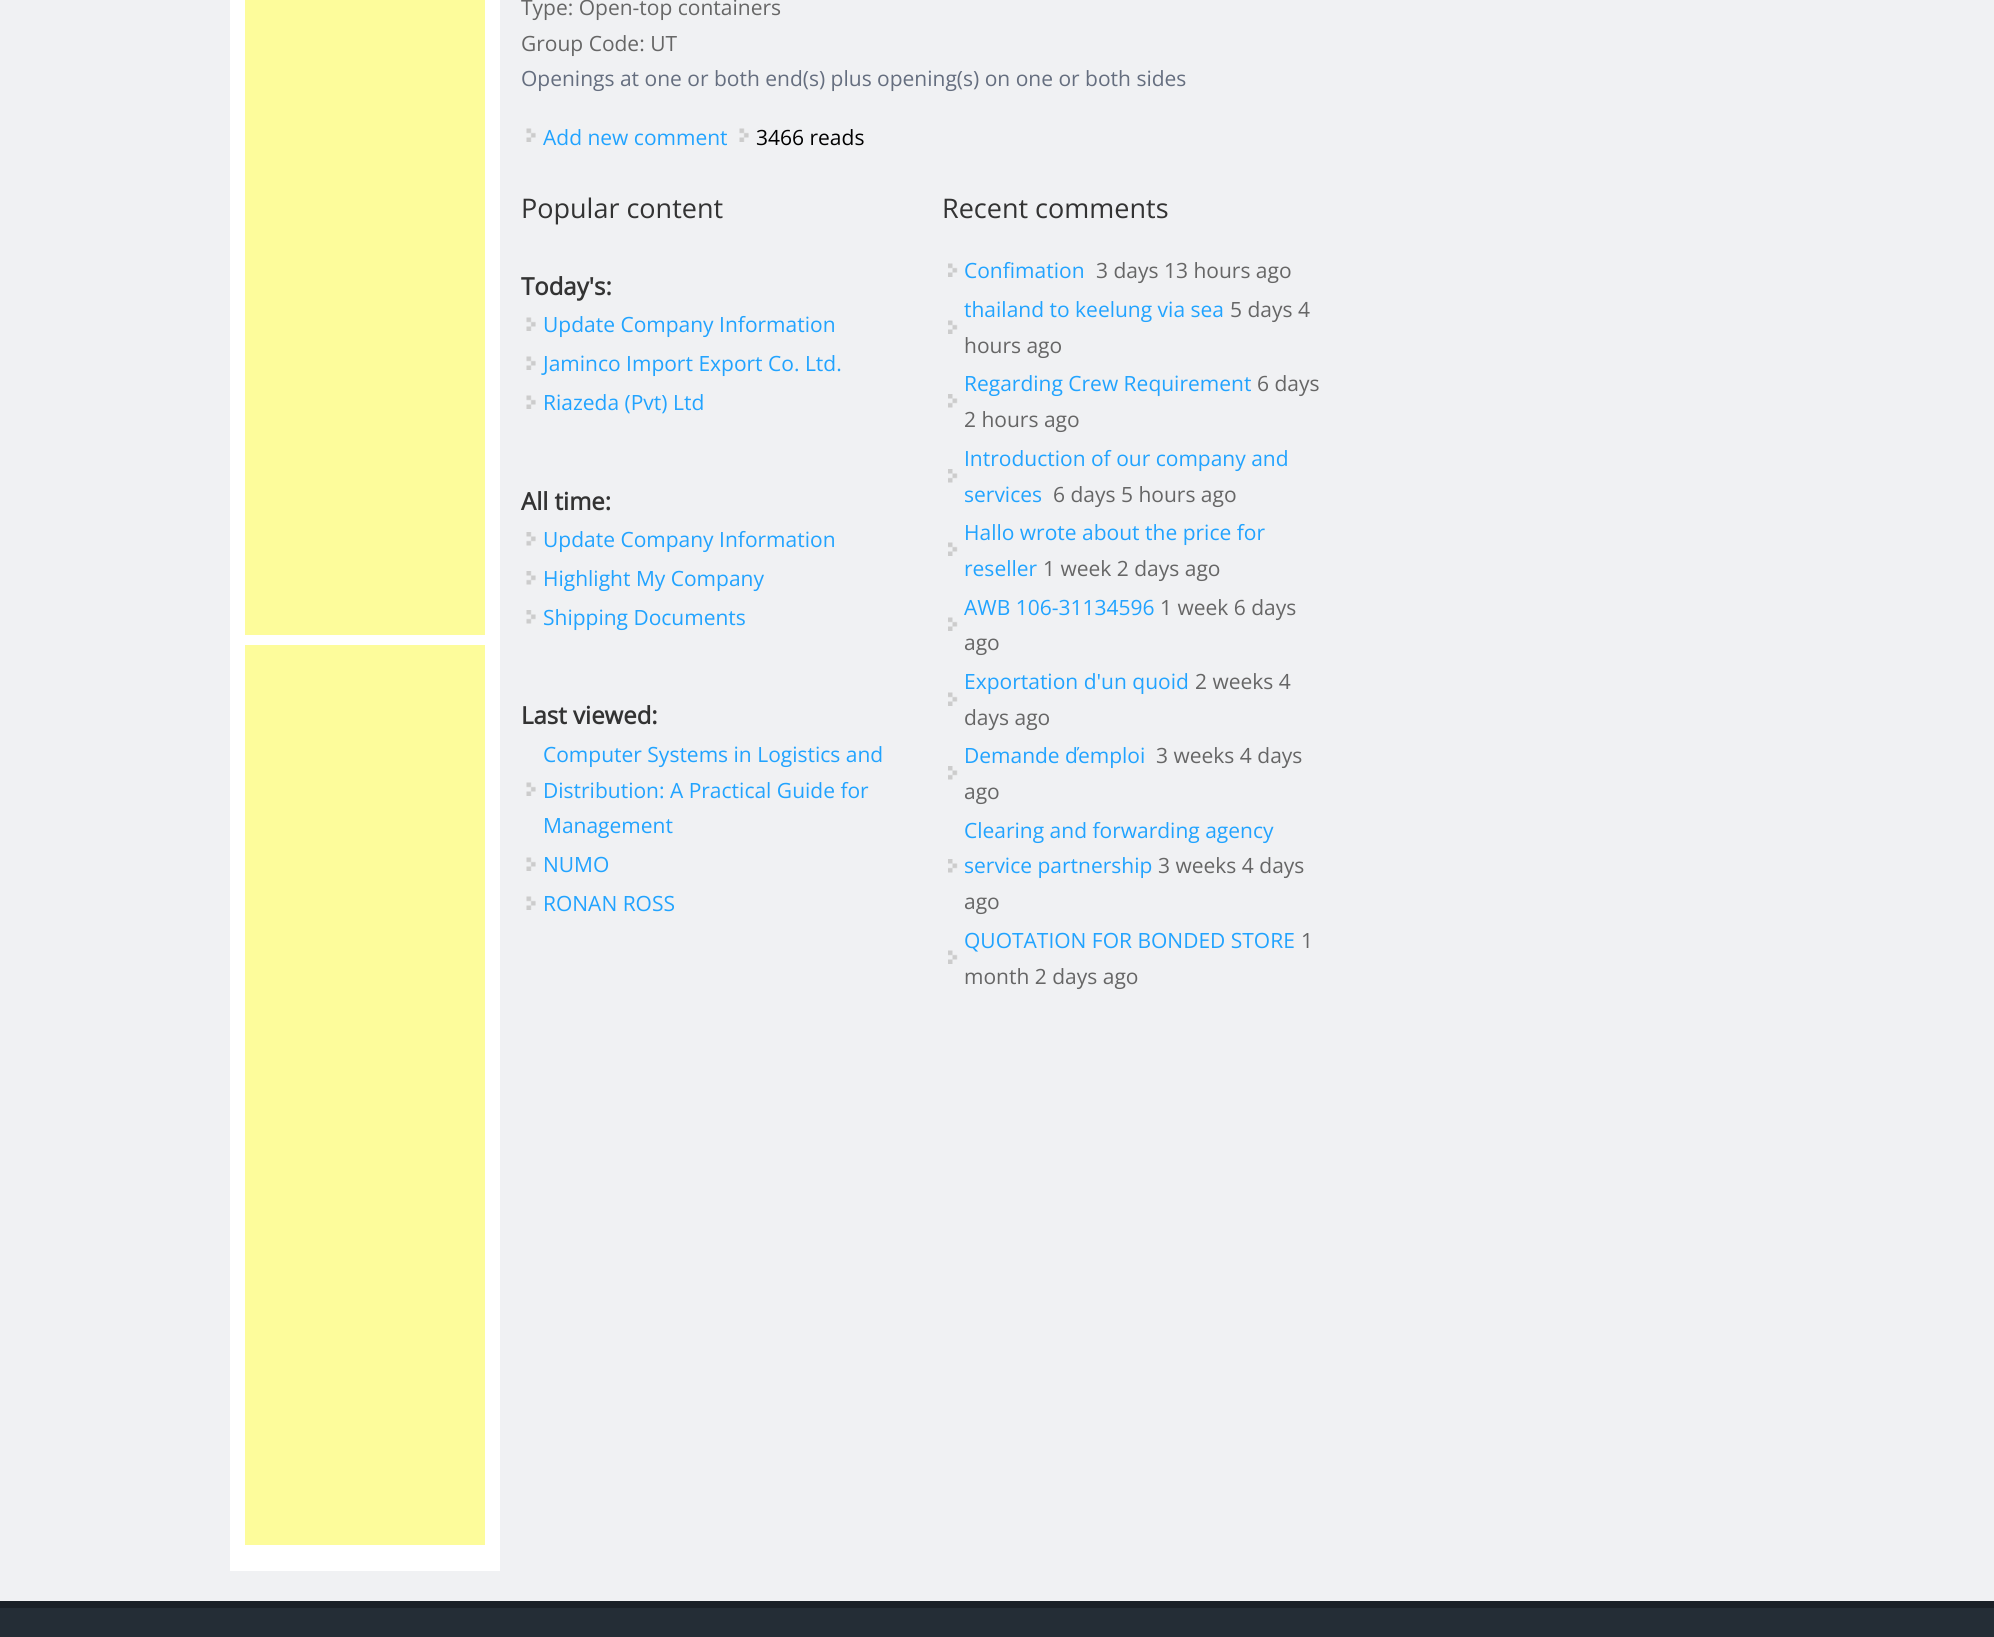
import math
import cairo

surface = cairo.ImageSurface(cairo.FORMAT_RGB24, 1994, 1637)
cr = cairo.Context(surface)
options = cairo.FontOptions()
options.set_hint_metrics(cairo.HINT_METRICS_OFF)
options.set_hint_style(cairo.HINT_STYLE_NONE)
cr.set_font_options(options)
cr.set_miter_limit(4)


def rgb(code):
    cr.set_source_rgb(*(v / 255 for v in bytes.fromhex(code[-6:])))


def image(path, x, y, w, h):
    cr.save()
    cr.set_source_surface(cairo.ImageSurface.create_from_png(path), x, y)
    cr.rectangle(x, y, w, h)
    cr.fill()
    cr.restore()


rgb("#f0f1f3")
cr.paint()
for x, y, w, h, color in [
    (230, 0, 270, 1571, "#ffffff"),
    (245, 0, 240, 635, "#fdfc9b"),
    (245, 645, 240, 900, "#fdfc9b"),
]:
    rgb(color)
    cr.rectangle(x, y, w, h)
    cr.fill()
image("img/1.png", 526, 128, 10, 14)
image("img/1.png", 739, 128, 10, 14)
image("img/1.png", 526, 317, 10, 14)
image("img/1.png", 526, 356, 10, 14)
image("img/1.png", 526, 395, 10, 14)
image("img/2.png", 526, 532, 10, 14)
image("img/2.png", 526, 571, 10, 14)
image("img/2.png", 526, 610, 10, 14)
image("img/1.png", 526, 782, 10, 14)
image("img/1.png", 526, 857, 10, 14)
image("img/1.png", 526, 896, 10, 14)
image("img/3.png", 948, 263, 10, 14)
image("img/3.png", 948, 320, 10, 14)
image("img/4.png", 948, 394, 10, 14)
image("img/4.png", 948, 469, 10, 14)
image("img/3.png", 948, 542, 10, 14)
image("img/3.png", 948, 617, 10, 14)
image("img/3.png", 948, 692, 10, 14)
image("img/4.png", 948, 766, 10, 14)
image("img/4.png", 948, 859, 10, 14)
image("img/3.png", 948, 950, 10, 14)
rgb("#242d36")
cr.rectangle(0, 1608, 1994, 29)
cr.fill()
rgb("#1a2027")
cr.rectangle(0, 1601, 1994, 7)
cr.fill()
cr.select_font_face("Open Sans")
cr.set_font_size(21)
rgb("#666666")
cr.move_to(521, 15)
cr.show_text("Type: Open-top containers")
cr.move_to(521, 51)
cr.show_text("Group Code: UT")
rgb("#656e7f")
cr.move_to(521, 86)
cr.show_text("Openings at one or both end(s) plus opening(s) on one or both sides")
rgb("#21a3ff")
cr.move_to(543, 145)
cr.show_text("Add new comment")
rgb("#000000")
cr.move_to(756, 145)
cr.show_text("3466 reads")
cr.set_font_size(27)
rgb("#333333")
cr.move_to(521, 218)
cr.show_text("Popular content")
cr.select_font_face("Open Sans", cairo.FONT_SLANT_NORMAL, cairo.FONT_WEIGHT_BOLD)
cr.set_font_size(24)
cr.move_to(521, 295)
cr.show_text("Today's:")
cr.select_font_face("Open Sans")
cr.set_font_size(21)
rgb("#21a3ff")
for x, y, s in [
    (543, 332, "Update Company Information"),
    (543, 371, "Jaminco Import Export Co. Ltd."),
    (543, 410, "Riazeda (Pvt) Ltd"),
]:
    cr.move_to(x, y)
    cr.show_text(s)
cr.select_font_face("Open Sans", cairo.FONT_SLANT_NORMAL, cairo.FONT_WEIGHT_BOLD)
cr.set_font_size(24)
rgb("#333333")
cr.move_to(521, 510)
cr.show_text("All time:")
cr.select_font_face("Open Sans")
cr.set_font_size(21)
rgb("#21a3ff")
for x, y, s in [
    (543, 547, "Update Company Information"),
    (543, 586, "Highlight My Company"),
    (543, 625, "Shipping Documents"),
]:
    cr.move_to(x, y)
    cr.show_text(s)
cr.select_font_face("Open Sans", cairo.FONT_SLANT_NORMAL, cairo.FONT_WEIGHT_BOLD)
cr.set_font_size(24)
rgb("#333333")
cr.move_to(521, 724)
cr.show_text("Last viewed:")
cr.select_font_face("Open Sans")
cr.set_font_size(21)
rgb("#21a3ff")
for x, y, s in [
    (543, 762, "Computer Systems in Logistics and"),
    (543, 798, "Distribution: A Practical Guide for"),
    (543, 833, "Management"),
    (543, 872, "NUMO"),
    (543, 911, "RONAN ROSS"),
]:
    cr.move_to(x, y)
    cr.show_text(s)
cr.set_font_size(27)
rgb("#333333")
cr.move_to(942, 218)
cr.show_text("Recent comments")
cr.set_font_size(21)
rgb("#21a3ff")
cr.move_to(964, 278)
cr.show_text("Confimation")
rgb("#666666")
cr.move_to(1096, 278)
cr.show_text("3 days 13 hours ago")
rgb("#21a3ff")
cr.move_to(964, 317)
cr.show_text("thailand to keelung via sea")
rgb("#666666")
cr.move_to(1230, 317)
cr.show_text("5 days 4")
cr.move_to(964, 353)
cr.show_text("hours ago")
rgb("#21a3ff")
cr.move_to(964, 391)
cr.show_text("Regarding Crew Requirement")
rgb("#666666")
cr.move_to(1257, 391)
cr.show_text("6 days")
cr.move_to(964, 427)
cr.show_text("2 hours ago")
rgb("#21a3ff")
cr.move_to(964, 466)
cr.show_text("Introduction of our company and")
cr.move_to(964, 502)
cr.show_text("services")
rgb("#666666")
cr.move_to(1053, 502)
cr.show_text("6 days 5 hours ago")
rgb("#21a3ff")
cr.move_to(964, 540)
cr.show_text("Hallo wrote about the price for")
cr.move_to(964, 576)
cr.show_text("reseller")
rgb("#666666")
cr.move_to(1043, 576)
cr.show_text("1 week 2 days ago")
rgb("#21a3ff")
cr.move_to(964, 615)
cr.show_text("AWB 106-31134596")
rgb("#666666")
cr.move_to(1160, 615)
cr.show_text("1 week 6 days")
cr.move_to(964, 650)
cr.show_text("ago")
rgb("#21a3ff")
cr.move_to(964, 689)
cr.show_text("Exportation d'un quoid")
rgb("#666666")
cr.move_to(1195, 689)
cr.show_text("2 weeks 4")
cr.move_to(964, 725)
cr.show_text("days ago")
rgb("#21a3ff")
cr.move_to(964, 763)
cr.show_text("Demande ďemploi")
rgb("#666666")
cr.move_to(1156, 763)
cr.show_text("3 weeks 4 days")
cr.move_to(964, 799)
cr.show_text("ago")
rgb("#21a3ff")
cr.move_to(964, 838)
cr.show_text("Clearing and forwarding agency")
cr.move_to(964, 873)
cr.show_text("service partnership")
rgb("#666666")
cr.move_to(1158, 873)
cr.show_text("3 weeks 4 days")
cr.move_to(964, 909)
cr.show_text("ago")
rgb("#21a3ff")
cr.move_to(964, 948)
cr.show_text("QUOTATION FOR BONDED STORE")
rgb("#666666")
cr.move_to(1301, 948)
cr.show_text("1")
cr.move_to(964, 984)
cr.show_text("month 2 days ago")
surface.write_to_png("page.png")
